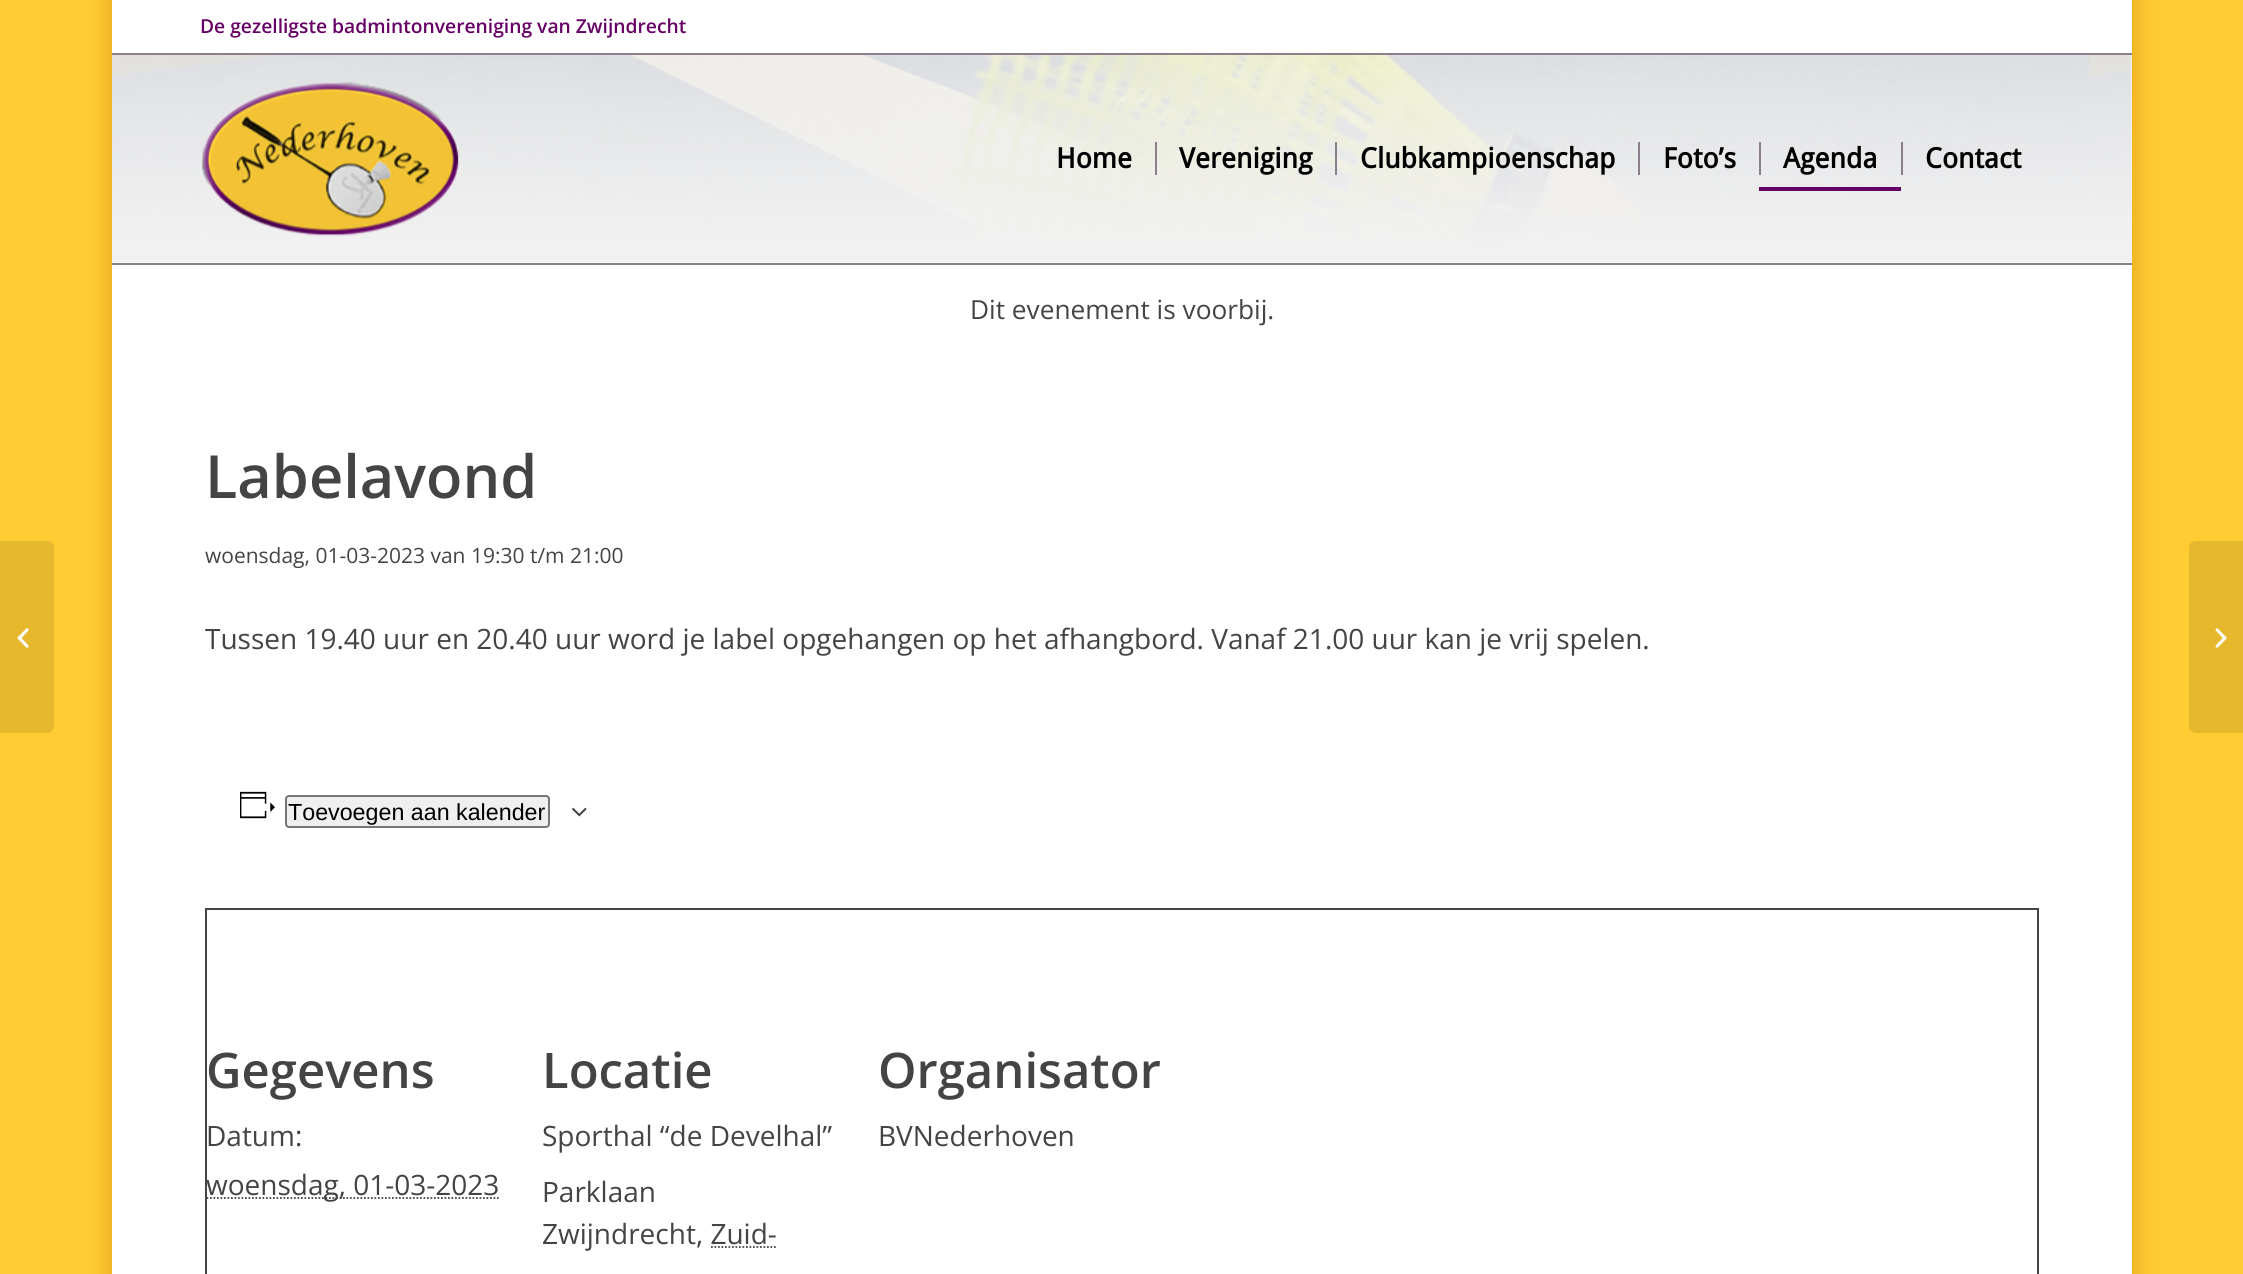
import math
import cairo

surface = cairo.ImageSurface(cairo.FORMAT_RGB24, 2243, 1274)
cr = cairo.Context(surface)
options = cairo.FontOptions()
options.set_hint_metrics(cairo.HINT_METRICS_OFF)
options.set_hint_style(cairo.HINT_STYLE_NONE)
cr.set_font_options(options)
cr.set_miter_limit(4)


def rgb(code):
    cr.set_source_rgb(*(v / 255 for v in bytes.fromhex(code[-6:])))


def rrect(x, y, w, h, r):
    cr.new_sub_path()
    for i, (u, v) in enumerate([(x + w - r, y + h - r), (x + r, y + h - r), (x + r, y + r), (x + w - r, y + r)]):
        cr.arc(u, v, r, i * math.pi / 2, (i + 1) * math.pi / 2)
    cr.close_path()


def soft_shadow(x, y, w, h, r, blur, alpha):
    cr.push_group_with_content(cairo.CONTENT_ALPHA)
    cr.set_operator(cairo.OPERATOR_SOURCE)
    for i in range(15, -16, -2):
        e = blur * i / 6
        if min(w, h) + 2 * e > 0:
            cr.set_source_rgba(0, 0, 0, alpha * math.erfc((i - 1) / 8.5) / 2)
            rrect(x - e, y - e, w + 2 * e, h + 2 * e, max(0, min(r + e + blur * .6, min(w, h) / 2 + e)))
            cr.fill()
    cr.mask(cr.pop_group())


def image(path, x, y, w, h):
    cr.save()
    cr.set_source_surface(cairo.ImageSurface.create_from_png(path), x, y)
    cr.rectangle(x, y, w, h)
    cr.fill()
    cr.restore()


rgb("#ffcc33")
cr.paint()
rgb("#e7a61a")
soft_shadow(109, -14, 2026, 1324, 0, 12, 1)
for x, y, w, h, color in [
    (112, 0, 2020, 53, "#ffffff"),
    (112, 53, 2020, 2, "#8c7f8c"),
    (112, 55, 2020, 1219, "#ffffff"),
]:
    rgb(color)
    cr.rectangle(x, y, w, h)
    cr.fill()
image("img/1.png", 112, 55, 2020, 208)
rgb("#8c7f8c")
cr.rectangle(112, 263, 2020, 2)
cr.fill()
image("img/2.png", 202, 82, 257, 154)
for x, y, w, h, color in [
    (1155, 142, 2, 33, "#8c7f8c"),
    (1335, 142, 2, 33, "#8c7f8c"),
    (1638, 142, 2, 33, "#8c7f8c"),
    (1759, 142, 2, 33, "#8c7f8c"),
    (1759, 187, 142, 4, "#660066"),
    (1901, 142, 2, 33, "#8c7f8c"),
]:
    rgb(color)
    cr.rectangle(x, y, w, h)
    cr.fill()
rgb("#e6b82e")
cr.new_path()
cr.move_to(0, 541)
cr.line_to(47, 541)
cr.curve_to(51, 541, 54, 544, 54, 548)
cr.line_to(54, 726)
cr.curve_to(54, 730, 51, 733, 47, 733)
cr.line_to(0, 733)
cr.close_path()
cr.fill()
image("img/3.png", 17, 628, 12, 20)
image("img/4.png", 240, 791, 35, 28)
rgb("#efefef")
rrect(286, 796, 263, 31, 3)
cr.fill_preserve()
rgb("#767676")
cr.stroke()
image("img/5.png", 571, 807, 16, 10)
cr.rectangle(206, 909, 1832, 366)
rgb("#444444")
cr.stroke()
cr.new_path()
cr.move_to(206.5, 1198)
cr.line_to(500, 1198)
cr.set_line_width(1.8)
cr.set_dash([1.75, 1.75])
cr.stroke()
cr.new_path()
cr.move_to(711, 1247)
cr.line_to(777.5, 1247)
cr.stroke()
rgb("#e6b82e")
cr.new_path()
cr.move_to(2196, 541)
cr.line_to(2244, 541)
cr.line_to(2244, 733)
cr.line_to(2196, 733)
cr.curve_to(2192, 733, 2189, 730, 2189, 726)
cr.line_to(2189, 548)
cr.curve_to(2189, 544, 2192, 541, 2196, 541)
cr.close_path()
cr.fill()
image("img/6.png", 2215, 628, 12, 20)
cr.select_font_face("Open Sans SemiBold")
cr.set_font_size(19.25)
rgb("#660066")
cr.move_to(200, 33)
cr.show_text("De gezelligste badmintonvereniging van Zwijndrecht")
cr.select_font_face("Droid Sans", cairo.FONT_SLANT_NORMAL, cairo.FONT_WEIGHT_BOLD)
cr.set_font_size(28)
rgb("#000000")
for x, y, s in [
    (1056, 168, "Home"),
    (1179, 168, "Vereniging"),
    (1360, 168, "Clubkampioenschap"),
    (1663, 168, "Foto’s"),
    (1783, 168, "Agenda"),
    (1925, 168, "Contact"),
]:
    cr.move_to(x, y)
    cr.show_text(s)
cr.select_font_face("Open Sans")
cr.set_font_size(26.25)
rgb("#444444")
cr.move_to(970, 319)
cr.show_text("Dit evenement is voorbij.")
cr.select_font_face("Open Sans SemiBold")
cr.set_font_size(59.5)
cr.move_to(205, 498)
cr.show_text("Labelavond")
cr.select_font_face("Open Sans")
cr.set_font_size(21)
cr.move_to(205, 563)
cr.show_text("woensdag, 01-03-2023 van 19:30 t/m 21:00")
cr.set_font_size(28)
cr.move_to(205, 649)
cr.show_text("Tussen 19.40 uur en 20.40 uur word je label opgehangen op het afhangbord. Vanaf 21.00 uur kan je vrij spelen.")
cr.select_font_face("Liberation Sans")
cr.set_font_size(23.25)
rgb("#000000")
cr.move_to(288, 820)
cr.show_text("Toevoegen aan kalender")
cr.select_font_face("Open Sans SemiBold")
cr.set_font_size(49)
rgb("#444444")
cr.move_to(206, 1088)
cr.show_text("Gegevens")
cr.select_font_face("Open Sans")
cr.set_font_size(28)
cr.move_to(206, 1146)
cr.show_text("Datum:")
cr.move_to(206, 1195)
cr.show_text("woensdag, 01-03-2023")
cr.select_font_face("Open Sans SemiBold")
cr.set_font_size(49)
cr.move_to(542, 1088)
cr.show_text("Locatie")
cr.select_font_face("Open Sans")
cr.set_font_size(28)
for x, y, s in [
    (542, 1146, "Sporthal “de Develhal”"),
    (542, 1202, "Parklaan"),
    (542, 1244, "Zwijndrecht, Zuid-"),
]:
    cr.move_to(x, y)
    cr.show_text(s)
cr.select_font_face("Open Sans SemiBold")
cr.set_font_size(49)
cr.move_to(878, 1088)
cr.show_text("Organisator")
cr.select_font_face("Open Sans")
cr.set_font_size(28)
cr.move_to(878, 1146)
cr.show_text("BVNederhoven")
surface.write_to_png("page.png")
